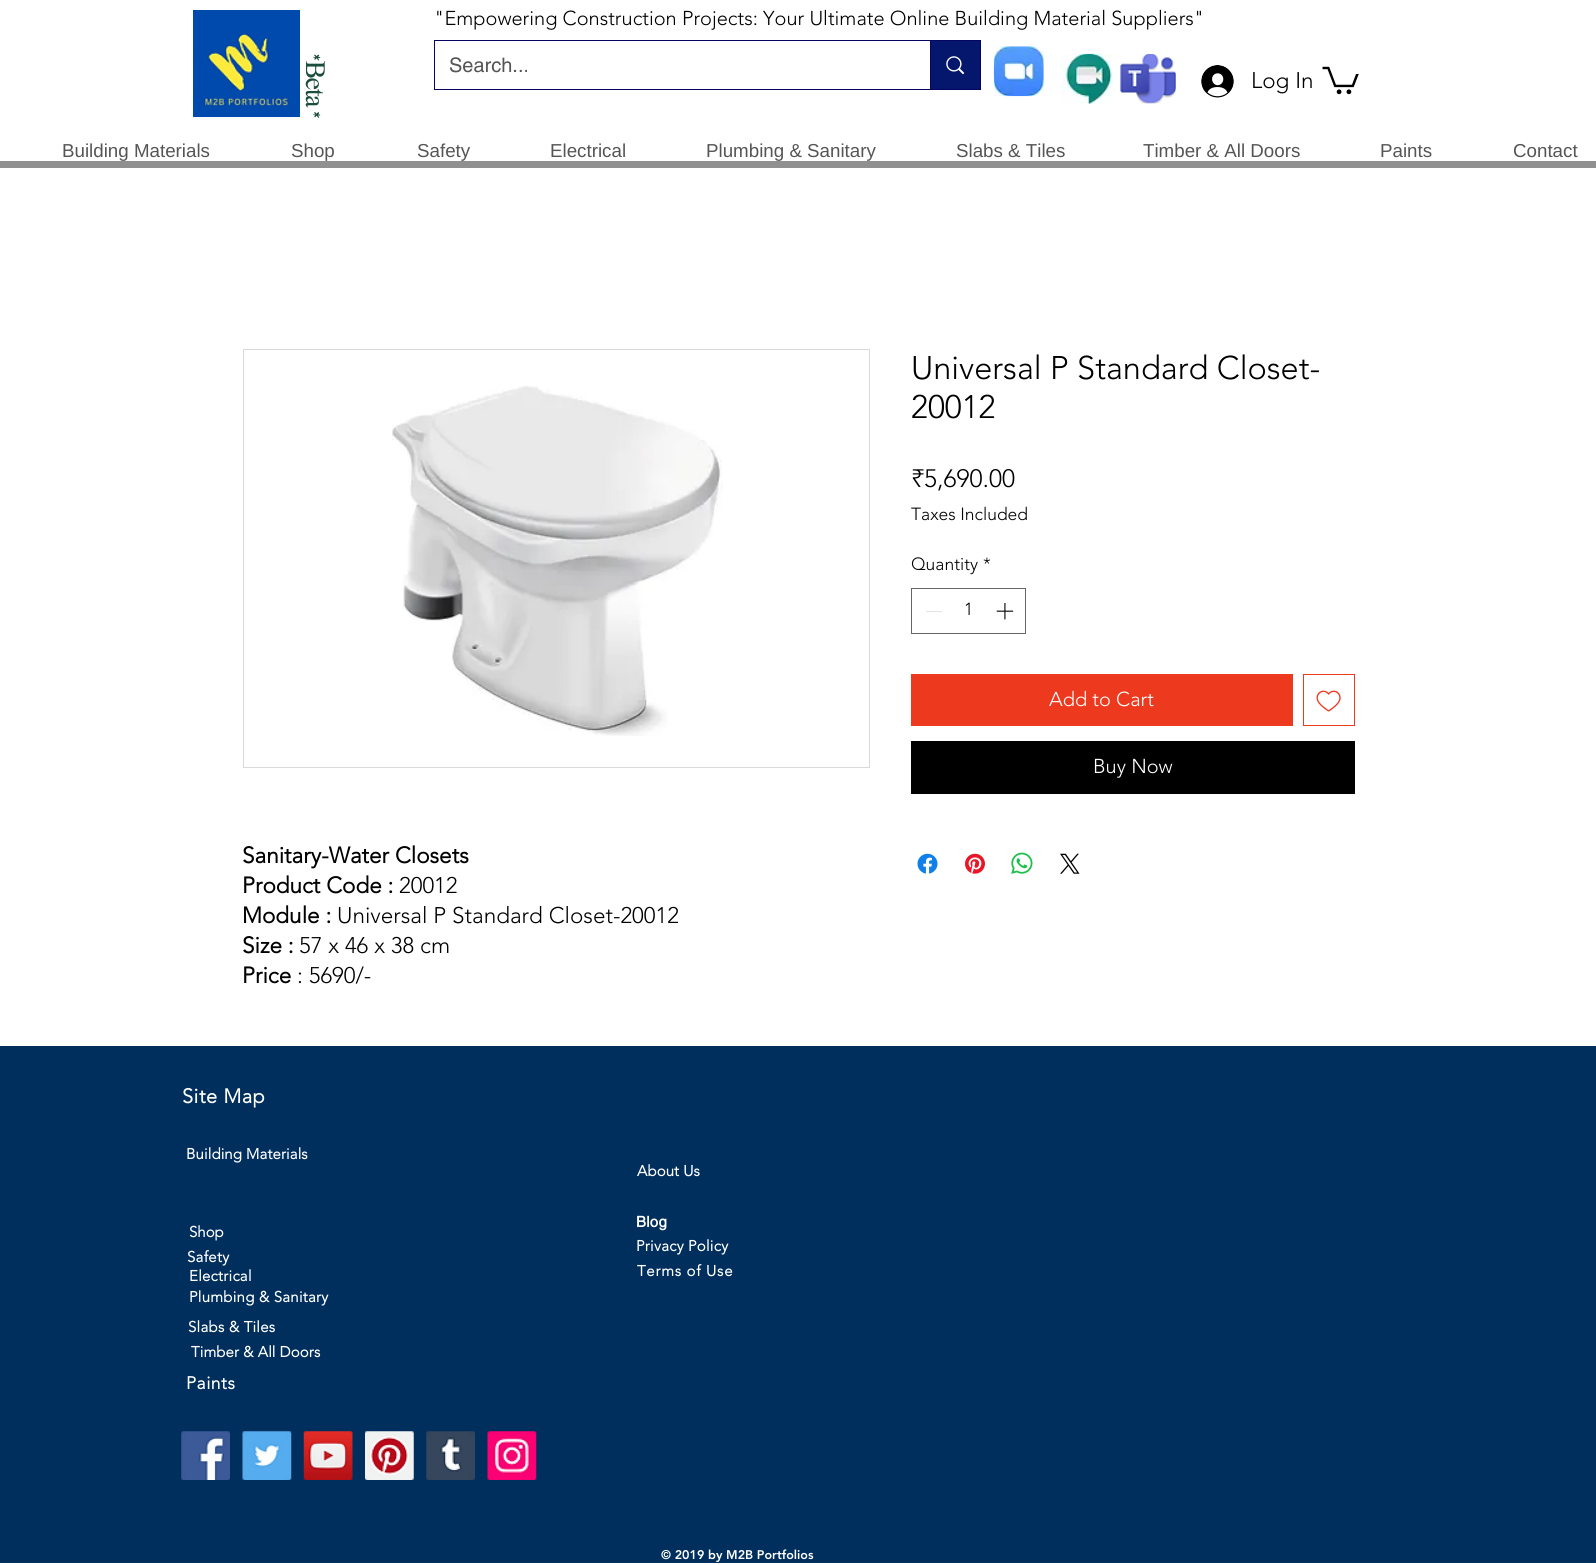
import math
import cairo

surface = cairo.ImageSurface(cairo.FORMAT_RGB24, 1596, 1565)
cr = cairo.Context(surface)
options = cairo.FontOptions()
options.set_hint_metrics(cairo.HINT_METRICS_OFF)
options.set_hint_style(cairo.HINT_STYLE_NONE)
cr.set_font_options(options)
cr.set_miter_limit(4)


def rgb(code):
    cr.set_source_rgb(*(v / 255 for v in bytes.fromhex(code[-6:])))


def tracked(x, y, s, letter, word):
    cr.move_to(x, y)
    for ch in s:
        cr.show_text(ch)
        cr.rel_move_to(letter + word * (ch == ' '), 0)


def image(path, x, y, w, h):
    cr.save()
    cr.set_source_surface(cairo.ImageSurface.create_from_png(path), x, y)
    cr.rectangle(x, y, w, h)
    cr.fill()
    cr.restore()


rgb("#ffffff")
cr.paint()
image("img/1.png", 193, 10, 107, 108)
cr.rectangle(434.5, 40.5, 546, 49)
rgb("#060461")
cr.set_line_width(1)
cr.stroke()
rgb("#05166d")
cr.rectangle(931, 41, 49, 48)
cr.fill()
rgb("#060461")
cr.rectangle(930, 41, 1, 48)
cr.fill()
image("img/2.png", 946, 56, 19, 19)
image("img/3.png", 993, 46, 51, 51)
image("img/4.png", 1061, 53, 53, 51)
image("img/5.png", 1120, 54, 56, 50)
image("img/6.png", 1201, 65, 33, 33)
image("img/7.png", 1322, 66, 37, 29)
rgb("#909090")
cr.rectangle(0, 161, 1596, 7)
cr.fill()
cr.rectangle(911.5, 588.5, 114, 45)
rgb("#666666")
cr.stroke()
rgb("#e3e3e3")
cr.rectangle(926, 611, 16, 1)
cr.fill()
image("img/8.png", 996, 603, 18, 17)
rgb("#ed3a1e")
cr.rectangle(911, 674, 382, 52)
cr.fill()
cr.rectangle(1303.5, 674.5, 51, 51)
cr.stroke()
image("img/9.png", 1316, 690, 25, 22)
rgb("#000000")
cr.rectangle(911, 741, 444, 53)
cr.fill()
image("img/10.png", 917, 853, 21, 21)
image("img/11.png", 965, 853, 20, 21)
image("img/12.png", 1011, 852, 22, 22)
image("img/13.png", 1060, 853, 20, 21)
cr.rectangle(243.5, 349.5, 626, 418)
rgb("#d9d9d9")
cr.stroke()
image("img/14.png", 392, 385, 331, 351)
rgb("#002e5d")
cr.rectangle(0, 1046, 1596, 517)
cr.fill()
image("img/15.png", 181, 1431, 49, 49)
image("img/16.png", 242, 1431, 50, 49)
image("img/17.png", 303, 1431, 50, 49)
image("img/18.png", 365, 1431, 49, 49)
image("img/19.png", 426, 1431, 49, 49)
image("img/20.png", 487, 1431, 50, 49)
cr.select_font_face("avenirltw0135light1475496 Light")
cr.set_font_size(20)
rgb("#000000")
cr.move_to(434, 25)
cr.show_text("\"Empowering Construction Projects: Your Ultimate Online Building Material Suppliers\"")
cr.select_font_face("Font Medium")
cr.set_font_size(27.5)
rgb("#1b4d3b")
cr.save()
cr.translate(306, 53)
cr.rotate(90 * math.pi / 180)
tracked(0, 0, "*Beta *", -1.5, 0)
cr.restore()
cr.select_font_face("helvetica")
cr.set_font_size(20)
rgb("#555555")
cr.move_to(449, 72)
cr.show_text("Search...")
cr.select_font_face("avenirltw0135light1475496 Light")
cr.set_font_size(22.5)
rgb("#000000")
cr.move_to(1251, 88)
cr.show_text("Log In")
cr.select_font_face("Liberation Sans")
cr.set_font_size(18.75)
rgb("#555555")
for x, y, s in [
    (62, 157, "Building Materials"),
    (291, 157, "Shop"),
    (417, 157, "Safety"),
    (550, 157, "Electrical"),
    (706, 157, "Plumbing & Sanitary"),
    (956, 157, "Slabs & Tiles"),
    (1143, 157, "Timber & All Doors"),
    (1380, 157, "Paints"),
    (1513, 157, "Contact"),
]:
    cr.move_to(x, y)
    cr.show_text(s)
cr.select_font_face("avenirltw0135light1475496 Light")
cr.set_font_size(32.5)
rgb("#000000")
cr.move_to(911, 379)
cr.show_text("Universal P Standard Closet-")
cr.move_to(911, 418)
cr.show_text("20012")
cr.set_font_size(25)
cr.move_to(911, 487)
cr.show_text("₹5,690.00")
cr.set_font_size(17.5)
for x, y, s in [
    (911, 520, "Taxes Included"),
    (911, 570, "Quantity"),
    (983, 570, "*"),
    (964, 615, "1"),
]:
    cr.move_to(x, y)
    cr.show_text(s)
cr.set_font_size(20)
rgb("#ffffff")
cr.move_to(1049, 706)
cr.show_text("Add to Cart")
cr.move_to(1093, 773)
cr.show_text("Buy Now")
cr.select_font_face("avenirltw0135light1475496", cairo.FONT_SLANT_NORMAL, cairo.FONT_WEIGHT_BOLD)
cr.set_font_size(22.5)
rgb("#000000")
cr.move_to(242, 863)
cr.show_text("Sanitary-Water Closets")
cr.move_to(242, 893)
cr.show_text("Product Code :")
cr.select_font_face("avenirltw0135light1475496 Light")
cr.move_to(399, 893)
cr.show_text("20012")
cr.select_font_face("avenirltw0135light1475496", cairo.FONT_SLANT_NORMAL, cairo.FONT_WEIGHT_BOLD)
cr.move_to(242, 923)
cr.show_text("Module :")
cr.select_font_face("avenirltw0135light1475496 Light")
cr.move_to(337, 923)
cr.show_text("Universal P Standard Closet-20012")
cr.select_font_face("avenirltw0135light1475496", cairo.FONT_SLANT_NORMAL, cairo.FONT_WEIGHT_BOLD)
cr.move_to(242, 953)
cr.show_text("Size :")
cr.select_font_face("avenirltw0135light1475496 Light")
cr.move_to(299, 953)
cr.show_text("57 x 46 x 38 cm")
cr.select_font_face("avenirltw0135light1475496", cairo.FONT_SLANT_NORMAL, cairo.FONT_WEIGHT_BOLD)
cr.move_to(242, 983)
cr.show_text("Price")
cr.select_font_face("avenirltw0135light1475496 Light")
cr.move_to(297, 983)
cr.show_text(": 5690/-")
cr.select_font_face("avenirltw0135light1475496", cairo.FONT_SLANT_NORMAL, cairo.FONT_WEIGHT_BOLD)
cr.set_font_size(20)
rgb("#ffffff")
tracked(182, 1103, "Site Map", 0.5, 0)
cr.set_font_size(15)
tracked(186, 1159, "Building Materials", 0.1, 0)
tracked(637, 1176, "About Us", 0.1, 0)
cr.select_font_face("helvetica", cairo.FONT_SLANT_NORMAL, cairo.FONT_WEIGHT_BOLD)
tracked(636, 1227, "Blog", 0.25, 0)
cr.select_font_face("avenirltw0135light1475496", cairo.FONT_SLANT_NORMAL, cairo.FONT_WEIGHT_BOLD)
cr.move_to(189, 1237)
cr.show_text("Shop")
for x, y, s in [
    (636, 1251, "Privacy Policy"),
    (187, 1262, "Safety"),
    (189, 1281, "Electrical"),
]:
    tracked(x, y, s, 0.25, 0)
tracked(637, 1276, "Terms of Use", 0.75, 0)
tracked(189, 1302, "Plumbing & Sanitary", 0.25, 0)
tracked(188, 1332, "Slabs & Tiles", 0.25, 0)
tracked(191, 1357, "Timber & All Doors", 0.1, 0)
cr.set_font_size(17.5)
tracked(186, 1389, "Paints", 0.5, 0)
cr.select_font_face("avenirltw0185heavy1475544 Black")
cr.set_font_size(12.5)
cr.move_to(661, 1559)
cr.show_text("© 2019 by M2B Portfolios")
surface.write_to_png("page.png")
